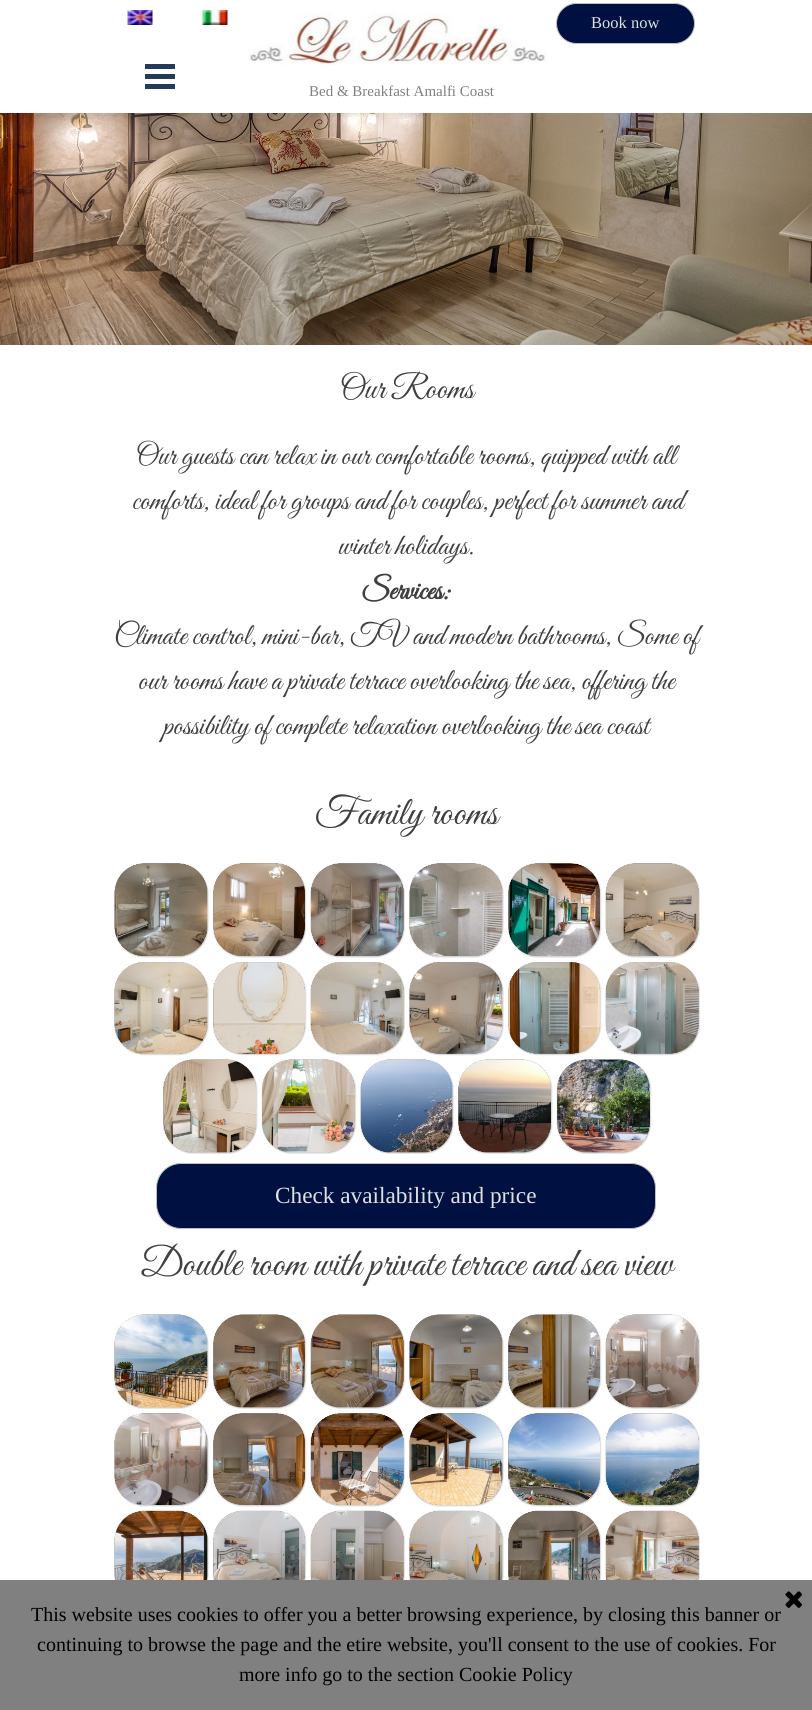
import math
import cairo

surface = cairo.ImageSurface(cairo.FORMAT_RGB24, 812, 1710)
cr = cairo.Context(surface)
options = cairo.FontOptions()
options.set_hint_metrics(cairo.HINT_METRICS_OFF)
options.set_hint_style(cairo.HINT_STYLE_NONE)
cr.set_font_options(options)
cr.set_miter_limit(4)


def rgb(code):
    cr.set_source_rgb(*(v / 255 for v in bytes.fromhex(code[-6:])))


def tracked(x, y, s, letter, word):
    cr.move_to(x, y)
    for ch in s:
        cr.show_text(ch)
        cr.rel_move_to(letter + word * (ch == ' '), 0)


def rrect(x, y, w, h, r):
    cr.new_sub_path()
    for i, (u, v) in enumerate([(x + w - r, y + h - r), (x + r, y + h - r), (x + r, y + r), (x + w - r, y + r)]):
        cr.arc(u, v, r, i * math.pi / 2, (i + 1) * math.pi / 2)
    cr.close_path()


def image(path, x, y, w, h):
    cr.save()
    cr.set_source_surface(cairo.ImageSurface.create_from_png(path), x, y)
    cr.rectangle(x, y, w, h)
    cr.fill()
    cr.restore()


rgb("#ffffff")
cr.paint()
image("img/1.png", 127, 10, 26, 15)
image("img/2.png", 202, 10, 26, 15)
image("img/3.png", 249, 12, 298, 53)
rgb("#001040")
rrect(556.5, 3.5, 138, 40, 20)
cr.fill_preserve()
rgb("#c0c0c0")
cr.set_line_width(1)
cr.stroke()
for x, y, w, h, color in [
    (145, 64, 30, 5, "#253a58"),
    (145, 74, 30, 5, "#253a58"),
    (145, 84, 30, 5, "#253a58"),
]:
    rgb(color)
    cr.rectangle(x, y, w, h)
    cr.fill()
image("img/4.png", 114, 863, 95, 95)
image("img/5.png", 213, 863, 94, 95)
image("img/6.png", 310, 863, 95, 95)
image("img/7.png", 409, 863, 95, 95)
image("img/8.png", 508, 863, 94, 95)
image("img/9.png", 605, 863, 95, 95)
image("img/10.png", 114, 962, 95, 94)
image("img/11.png", 213, 962, 94, 94)
image("img/12.png", 310, 962, 95, 94)
image("img/13.png", 409, 962, 95, 94)
image("img/14.png", 508, 962, 94, 94)
image("img/15.png", 605, 962, 95, 94)
image("img/16.png", 163, 1059, 95, 95)
image("img/17.png", 261, 1059, 96, 95)
image("img/18.png", 360, 1059, 94, 95)
image("img/19.png", 458, 1059, 95, 95)
image("img/20.png", 556, 1059, 96, 95)
rgb("#001040")
rrect(156.5, 1163.5, 499, 65, 24.5)
cr.fill_preserve()
rgb("#c0c0c0")
cr.stroke()
image("img/21.png", 114, 1314, 95, 95)
image("img/22.png", 213, 1314, 94, 95)
image("img/23.png", 310, 1314, 95, 95)
image("img/24.png", 409, 1314, 95, 95)
image("img/25.png", 508, 1314, 94, 95)
image("img/26.png", 605, 1314, 95, 95)
image("img/27.png", 114, 1413, 95, 94)
image("img/28.png", 213, 1413, 94, 94)
image("img/29.png", 310, 1413, 95, 94)
image("img/30.png", 409, 1413, 95, 94)
image("img/31.png", 508, 1413, 94, 94)
image("img/32.png", 605, 1413, 95, 94)
image("img/33.png", 114, 1510, 95, 70)
image("img/34.png", 213, 1510, 94, 70)
image("img/35.png", 310, 1510, 95, 70)
image("img/36.png", 409, 1510, 95, 70)
image("img/37.png", 508, 1510, 94, 70)
image("img/38.png", 605, 1510, 95, 70)
image("img/39.png", 0, 113, 812, 232)
rgb("#808080")
cr.rectangle(0, 1580, 812, 130)
cr.fill()
image("img/40.png", 785, 1591, 17, 17)
cr.select_font_face("Liberation Serif")
cr.set_font_size(16.5)
rgb("#e0e0e0")
cr.move_to(591, 28)
cr.show_text("Book now")
cr.set_font_size(15)
rgb("#808080")
cr.move_to(309, 96)
cr.show_text("Bed & Breakfast Amalfi Coast")
cr.select_font_face("Great Vibes")
cr.set_font_size(33.5)
rgb("#404040")
cr.move_to(340, 398)
cr.show_text("Our Rooms")
cr.set_font_size(30)
cr.move_to(136, 464)
cr.show_text("Our guests can relax in our comfortable rooms, quipped with all")
tracked(132, 509, "comforts, ideal for groups and for couples, perfect for summer and", 0, 0.25)
cr.move_to(338, 554)
cr.show_text("winter holidays.")
cr.select_font_face("Great Vibes", cairo.FONT_SLANT_NORMAL, cairo.FONT_WEIGHT_BOLD)
cr.move_to(361, 599)
cr.show_text("Services:")
cr.select_font_face("Great Vibes")
for x, y, s in [
    (114, 644, "Climate control, mini-bar, TV and modern bathrooms, Some of"),
    (138, 689, "our rooms have a private terrace overlooking the sea, offering the"),
    (163, 734, "possibility of complete relaxation overlooking the sea coast"),
]:
    cr.move_to(x, y)
    cr.show_text(s)
cr.set_font_size(40)
cr.move_to(315, 824)
cr.show_text("Family rooms")
cr.select_font_face("Liberation Serif")
cr.set_font_size(23.25)
rgb("#e0e0e0")
cr.move_to(275, 1203)
cr.show_text("Check availability and price")
cr.select_font_face("Great Vibes")
cr.set_font_size(40)
rgb("#404040")
cr.move_to(140, 1275)
cr.show_text("Double room with private terrace and sea view")
cr.select_font_face("Liberation Serif")
cr.set_font_size(20)
rgb("#000000")
for x, y, s in [
    (31, 1621, "This website uses cookies to offer you a better browsing experience, by closing this banner or"),
    (37, 1651, "continuing to browse the page and the etire website, you'll consent to the use of cookies. For"),
    (239, 1681, "more info go to the section Cookie Policy"),
]:
    cr.move_to(x, y)
    cr.show_text(s)
surface.write_to_png("page.png")
